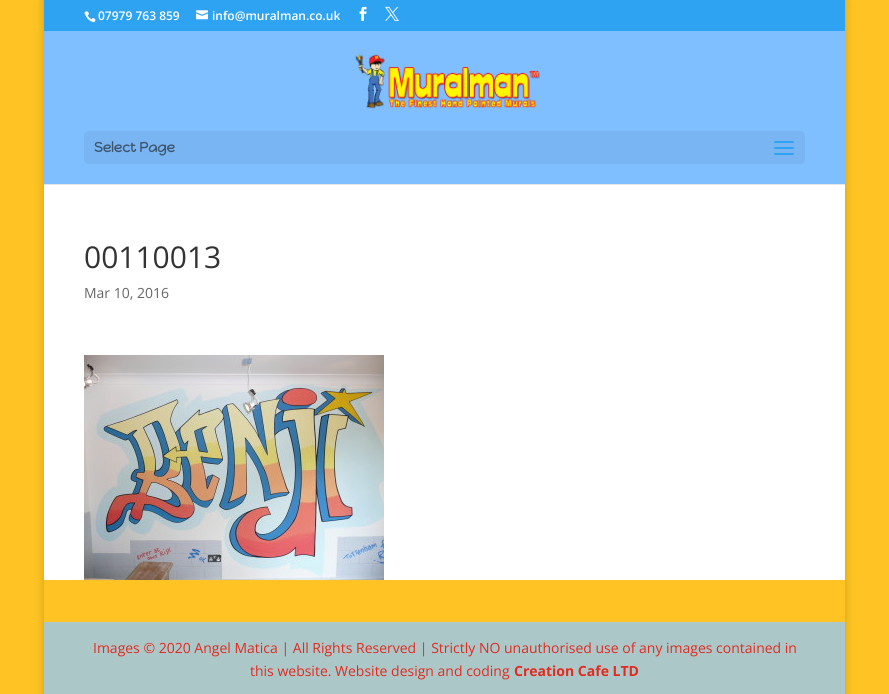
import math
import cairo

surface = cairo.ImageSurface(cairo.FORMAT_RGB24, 889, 694)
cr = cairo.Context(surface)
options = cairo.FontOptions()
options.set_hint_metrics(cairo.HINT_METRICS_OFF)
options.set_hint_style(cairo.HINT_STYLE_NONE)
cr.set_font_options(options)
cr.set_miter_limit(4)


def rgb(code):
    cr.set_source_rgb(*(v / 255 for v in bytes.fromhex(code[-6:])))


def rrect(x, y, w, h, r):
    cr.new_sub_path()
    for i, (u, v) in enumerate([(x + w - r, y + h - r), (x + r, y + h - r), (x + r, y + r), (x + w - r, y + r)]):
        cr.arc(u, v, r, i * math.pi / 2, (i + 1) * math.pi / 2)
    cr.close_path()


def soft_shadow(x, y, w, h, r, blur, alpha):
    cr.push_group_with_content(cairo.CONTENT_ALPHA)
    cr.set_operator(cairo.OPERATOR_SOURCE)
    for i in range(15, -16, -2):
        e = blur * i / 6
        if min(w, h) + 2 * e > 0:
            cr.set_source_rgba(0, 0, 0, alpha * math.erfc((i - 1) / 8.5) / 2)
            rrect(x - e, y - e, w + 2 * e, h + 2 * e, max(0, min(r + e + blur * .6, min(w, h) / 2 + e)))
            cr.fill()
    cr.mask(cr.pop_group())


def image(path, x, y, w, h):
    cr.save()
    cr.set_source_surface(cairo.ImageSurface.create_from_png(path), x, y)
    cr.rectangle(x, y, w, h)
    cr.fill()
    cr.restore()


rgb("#ffc423")
cr.paint()
cr.save()
cr.set_fill_rule(cairo.FILL_RULE_EVEN_ODD)
cr.new_path()
cr.move_to(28, 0)
cr.line_to(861, 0)
cr.line_to(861, 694)
cr.line_to(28, 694)
cr.close_path()
cr.move_to(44, 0)
cr.line_to(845, 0)
cr.line_to(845, 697)
cr.line_to(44, 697)
cr.close_path()
cr.clip()
rgb("#000000")
soft_shadow(44, 0, 801, 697, 0, 5, 0.2)
cr.restore()
rgb("#2ea3f2")
cr.rectangle(44, 0, 801, 31)
cr.fill()
image("img/1.png", 84, 11, 12, 12)
image("img/2.png", 196, 10, 12, 10)
image("img/3.png", 359, 6, 8, 15)
image("img/4.png", 385, 6, 14, 15)
rgb("#e6e6e6")
cr.rectangle(44, 184, 801, 1)
cr.fill()
rgb("#7fbeff")
cr.rectangle(44, 31, 801, 153)
cr.fill()
image("img/5.png", 355, 54, 185, 55)
rgb("#79b5f2")
rrect(84, 131, 721, 33, 5)
cr.fill()
image("img/6.png", 774, 141, 20, 14)
rgb("#ffffff")
cr.rectangle(44, 185, 801, 395)
cr.fill()
image("img/7.png", 84, 355, 300, 225)
rgb("#acc7c8")
cr.rectangle(44, 622, 801, 72)
cr.fill()
cr.select_font_face("Open Sans SemiBold")
cr.set_font_size(12)
rgb("#ffffff")
cr.move_to(98, 20)
cr.show_text("07979 763 859")
cr.move_to(212, 20)
cr.show_text("info@muralman.co.uk")
cr.select_font_face("Happy Monkey", cairo.FONT_SLANT_NORMAL, cairo.FONT_WEIGHT_BOLD)
cr.set_font_size(14)
rgb("#3e566e")
cr.move_to(94, 152)
cr.show_text("Select Page")
cr.select_font_face("Open Sans")
cr.set_font_size(30)
rgb("#333333")
cr.move_to(84, 268)
cr.show_text("00110013")
cr.set_font_size(14)
rgb("#666666")
cr.move_to(84, 298)
cr.show_text("Mar 10, 2016")
rgb("#e02b20")
cr.move_to(93, 653)
cr.show_text("Images © 2020 Angel Matica | All Rights Reserved | Strictly NO unauthorised use of any images contained in")
cr.move_to(250, 676)
cr.show_text("this website. Website design and coding")
cr.select_font_face("Open Sans", cairo.FONT_SLANT_NORMAL, cairo.FONT_WEIGHT_BOLD)
cr.move_to(514, 676)
cr.show_text("Creation Cafe LTD")
surface.write_to_png("page.png")
